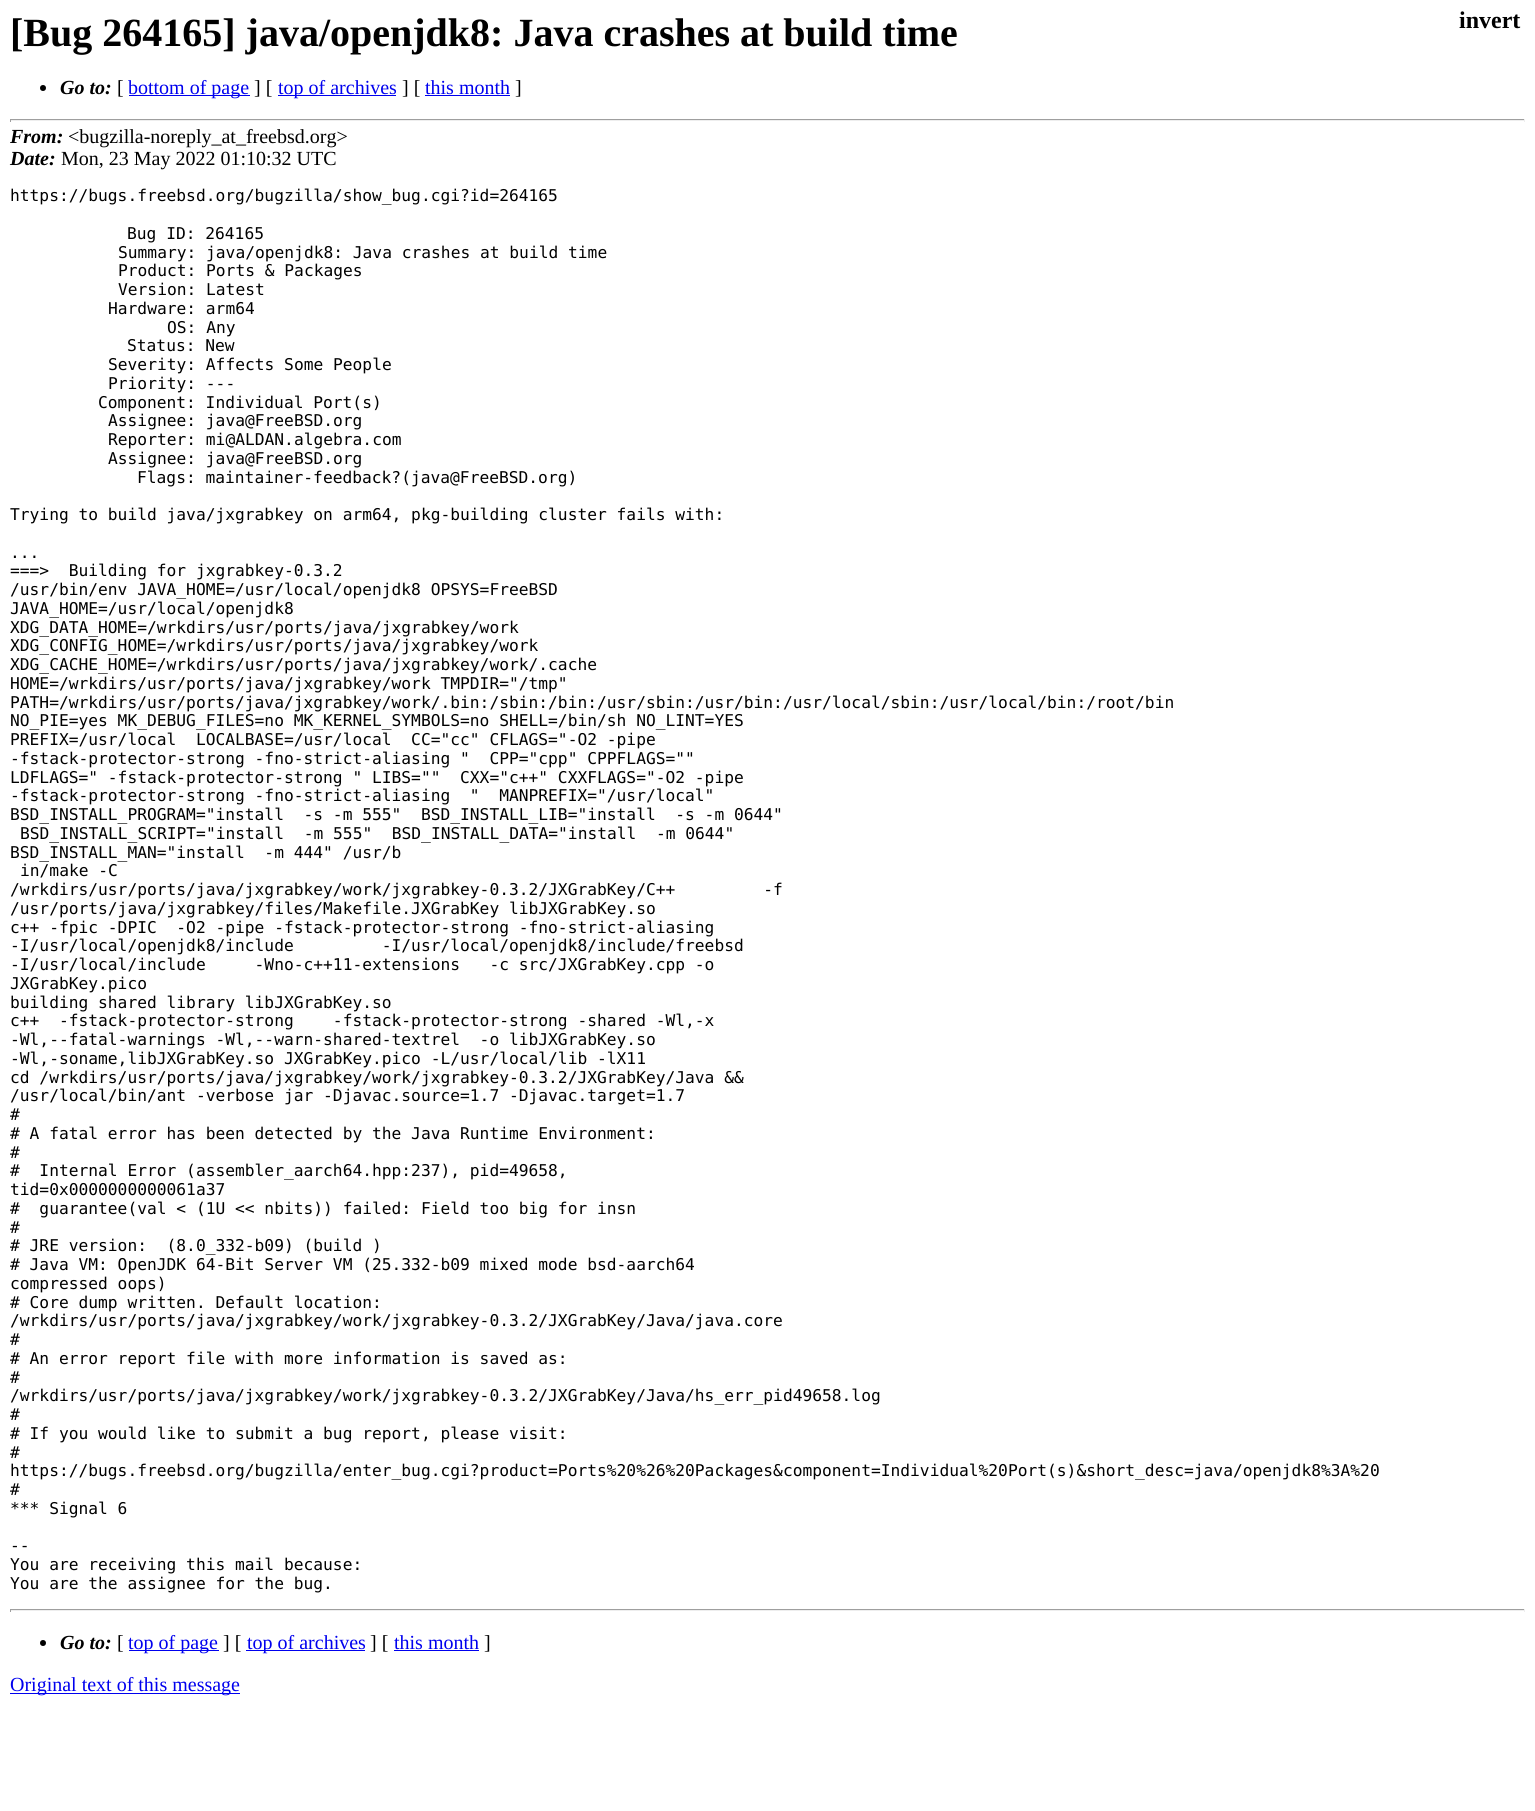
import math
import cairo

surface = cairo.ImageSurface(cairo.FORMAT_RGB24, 1535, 1811)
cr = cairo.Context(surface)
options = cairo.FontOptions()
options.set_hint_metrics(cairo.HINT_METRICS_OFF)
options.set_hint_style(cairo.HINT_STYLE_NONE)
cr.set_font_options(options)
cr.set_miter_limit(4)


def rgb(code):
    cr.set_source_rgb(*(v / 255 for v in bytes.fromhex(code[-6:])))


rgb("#ffffff")
cr.paint()
rgb("#000000")
cr.arc(43, 88, 3, 0, 2 * math.pi)
cr.fill()
for x, y, w, h, color in [
    (129, 95, 121, 1, "#0000ee"),
    (278, 95, 118, 1, "#0000ee"),
    (425, 95, 85, 1, "#0000ee"),
    (10, 119, 1515, 1, "#9f9f9f"),
    (1524, 119, 1, 3, "#eeeeee"),
    (10, 120, 1515, 1, "#eeeeee"),
    (10, 119, 1, 3, "#9f9f9f"),
    (10, 1609, 1515, 1, "#9f9f9f"),
    (1524, 1609, 1, 3, "#eeeeee"),
    (10, 1610, 1515, 1, "#eeeeee"),
    (10, 1609, 1, 3, "#9f9f9f"),
]:
    rgb(color)
    cr.rectangle(x, y, w, h)
    cr.fill()
rgb("#000000")
cr.arc(43, 1643, 3, 0, 2 * math.pi)
cr.fill()
for x, y, w, h, color in [
    (129, 1650, 90, 1, "#0000ee"),
    (246, 1650, 119, 1, "#0000ee"),
    (394, 1650, 85, 1, "#0000ee"),
    (10, 1693, 230, 1, "#0000ee"),
]:
    rgb(color)
    cr.rectangle(x, y, w, h)
    cr.fill()
cr.select_font_face("Liberation Serif", cairo.FONT_SLANT_NORMAL, cairo.FONT_WEIGHT_BOLD)
cr.set_font_size(40)
rgb("#000000")
cr.move_to(10, 46)
cr.show_text("[Bug 264165] java/openjdk8: Java crashes at build time")
cr.select_font_face("Liberation Serif", cairo.FONT_SLANT_ITALIC, cairo.FONT_WEIGHT_BOLD)
cr.set_font_size(20)
cr.move_to(60, 94)
cr.show_text("Go to:")
cr.select_font_face("Liberation Serif")
cr.move_to(117, 94)
cr.show_text("[")
rgb("#0000ee")
cr.move_to(128, 94)
cr.show_text("bottom of page")
rgb("#000000")
cr.move_to(254, 94)
cr.show_text("] [")
rgb("#0000ee")
cr.move_to(278, 94)
cr.show_text("top of archives")
rgb("#000000")
cr.move_to(402, 94)
cr.show_text("] [")
rgb("#0000ee")
cr.move_to(425, 94)
cr.show_text("this month")
rgb("#000000")
cr.move_to(515, 94)
cr.show_text("]")
cr.select_font_face("Liberation Serif", cairo.FONT_SLANT_NORMAL, cairo.FONT_WEIGHT_BOLD)
cr.set_font_size(24)
cr.move_to(1459, 28)
cr.show_text("invert")
cr.select_font_face("Liberation Serif", cairo.FONT_SLANT_ITALIC, cairo.FONT_WEIGHT_BOLD)
cr.set_font_size(20)
cr.move_to(10, 143)
cr.show_text("From:")
cr.select_font_face("Liberation Serif")
cr.move_to(68, 143)
cr.show_text("<bugzilla-noreply_at_freebsd.org>")
cr.select_font_face("Liberation Serif", cairo.FONT_SLANT_ITALIC, cairo.FONT_WEIGHT_BOLD)
cr.move_to(10, 165)
cr.show_text("Date:")
cr.select_font_face("Liberation Serif")
cr.move_to(61, 165)
cr.show_text("Mon, 23 May 2022 01:10:32 UTC")
cr.select_font_face("DejaVu Sans Mono")
cr.set_font_size(16.25)
for x, y, s in [
    (10, 201, "https://bugs.freebsd.org/bugzilla/show_bug.cgi?id=264165"),
    (127, 239, "Bug ID: 264165"),
    (118, 258, "Summary: java/openjdk8: Java crashes at build time"),
    (118, 276, "Product: Ports & Packages"),
    (118, 295, "Version: Latest"),
    (108, 314, "Hardware: arm64"),
    (167, 333, "OS: Any"),
    (127, 351, "Status: New"),
    (108, 370, "Severity: Affects Some People"),
    (108, 389, "Priority: ---"),
    (98, 408, "Component: Individual Port(s)"),
    (108, 426, "Assignee: java@FreeBSD.org"),
    (108, 445, "Reporter: mi@ALDAN.algebra.com"),
    (108, 464, "Assignee: java@FreeBSD.org"),
    (137, 483, "Flags: maintainer-feedback?(java@FreeBSD.org)"),
    (10, 520, "Trying to build java/jxgrabkey on arm64, pkg-building cluster fails with:"),
    (10, 558, "..."),
    (10, 576, "===>  Building for jxgrabkey-0.3.2"),
    (10, 595, "/usr/bin/env JAVA_HOME=/usr/local/openjdk8 OPSYS=FreeBSD"),
    (10, 614, "JAVA_HOME=/usr/local/openjdk8"),
    (10, 633, "XDG_DATA_HOME=/wrkdirs/usr/ports/java/jxgrabkey/work"),
    (10, 651, "XDG_CONFIG_HOME=/wrkdirs/usr/ports/java/jxgrabkey/work"),
    (10, 670, "XDG_CACHE_HOME=/wrkdirs/usr/ports/java/jxgrabkey/work/.cache"),
    (10, 689, "HOME=/wrkdirs/usr/ports/java/jxgrabkey/work TMPDIR=\"/tmp\""),
    (10, 708, "PATH=/wrkdirs/usr/ports/java/jxgrabkey/work/.bin:/sbin:/bin:/usr/sbin:/usr/bin:/usr/local/sbin:/usr/local/bin:/root/bin"),
    (10, 726, "NO_PIE=yes MK_DEBUG_FILES=no MK_KERNEL_SYMBOLS=no SHELL=/bin/sh NO_LINT=YES"),
    (10, 745, "PREFIX=/usr/local  LOCALBASE=/usr/local  CC=\"cc\" CFLAGS=\"-O2 -pipe"),
    (10, 764, "-fstack-protector-strong -fno-strict-aliasing \"  CPP=\"cpp\" CPPFLAGS=\"\""),
    (10, 783, "LDFLAGS=\" -fstack-protector-strong \" LIBS=\"\"  CXX=\"c++\" CXXFLAGS=\"-O2 -pipe"),
    (10, 801, "-fstack-protector-strong -fno-strict-aliasing  \"  MANPREFIX=\"/usr/local\""),
    (10, 820, "BSD_INSTALL_PROGRAM=\"install  -s -m 555\"  BSD_INSTALL_LIB=\"install  -s -m 0644\""),
    (20, 839, "BSD_INSTALL_SCRIPT=\"install  -m 555\"  BSD_INSTALL_DATA=\"install  -m 0644\""),
    (10, 858, "BSD_INSTALL_MAN=\"install  -m 444\" /usr/b"),
    (20, 876, "in/make -C"),
    (10, 895, "/wrkdirs/usr/ports/java/jxgrabkey/work/jxgrabkey-0.3.2/JXGrabKey/C++         -f"),
    (10, 914, "/usr/ports/java/jxgrabkey/files/Makefile.JXGrabKey libJXGrabKey.so"),
    (10, 933, "c++ -fpic -DPIC  -O2 -pipe -fstack-protector-strong -fno-strict-aliasing"),
    (10, 951, "-I/usr/local/openjdk8/include         -I/usr/local/openjdk8/include/freebsd"),
    (10, 970, "-I/usr/local/include     -Wno-c++11-extensions   -c src/JXGrabKey.cpp -o"),
    (10, 989, "JXGrabKey.pico"),
    (10, 1008, "building shared library libJXGrabKey.so"),
    (10, 1026, "c++  -fstack-protector-strong    -fstack-protector-strong -shared -Wl,-x"),
    (10, 1045, "-Wl,--fatal-warnings -Wl,--warn-shared-textrel  -o libJXGrabKey.so"),
    (10, 1064, "-Wl,-soname,libJXGrabKey.so JXGrabKey.pico -L/usr/local/lib -lX11"),
    (10, 1083, "cd /wrkdirs/usr/ports/java/jxgrabkey/work/jxgrabkey-0.3.2/JXGrabKey/Java &&"),
    (10, 1101, "/usr/local/bin/ant -verbose jar -Djavac.source=1.7 -Djavac.target=1.7"),
    (10, 1120, "#"),
    (10, 1139, "# A fatal error has been detected by the Java Runtime Environment:"),
    (10, 1158, "#"),
    (10, 1176, "#  Internal Error (assembler_aarch64.hpp:237), pid=49658,"),
    (10, 1195, "tid=0x0000000000061a37"),
    (10, 1214, "#  guarantee(val < (1U << nbits)) failed: Field too big for insn"),
    (10, 1233, "#"),
    (10, 1251, "# JRE version:  (8.0_332-b09) (build )"),
    (10, 1270, "# Java VM: OpenJDK 64-Bit Server VM (25.332-b09 mixed mode bsd-aarch64"),
    (10, 1289, "compressed oops)"),
    (10, 1308, "# Core dump written. Default location:"),
    (10, 1326, "/wrkdirs/usr/ports/java/jxgrabkey/work/jxgrabkey-0.3.2/JXGrabKey/Java/java.core"),
    (10, 1345, "#"),
    (10, 1364, "# An error report file with more information is saved as:"),
    (10, 1383, "#"),
    (10, 1401, "/wrkdirs/usr/ports/java/jxgrabkey/work/jxgrabkey-0.3.2/JXGrabKey/Java/hs_err_pid49658.log"),
    (10, 1420, "#"),
    (10, 1439, "# If you would like to submit a bug report, please visit:"),
    (10, 1458, "#"),
    (10, 1476, "https://bugs.freebsd.org/bugzilla/enter_bug.cgi?product=Ports%20%26%20Packages&component=Individual%20Port(s)&short_desc=java/openjdk8%3A%20"),
    (10, 1495, "#"),
    (10, 1514, "*** Signal 6"),
    (10, 1551, "--"),
    (10, 1570, "You are receiving this mail because:"),
    (10, 1589, "You are the assignee for the bug."),
]:
    cr.move_to(x, y)
    cr.show_text(s)
cr.select_font_face("Liberation Serif", cairo.FONT_SLANT_ITALIC, cairo.FONT_WEIGHT_BOLD)
cr.set_font_size(20)
cr.move_to(60, 1649)
cr.show_text("Go to:")
cr.select_font_face("Liberation Serif")
cr.move_to(117, 1649)
cr.show_text("[")
rgb("#0000ee")
cr.move_to(128, 1649)
cr.show_text("top of page")
rgb("#000000")
cr.move_to(223, 1649)
cr.show_text("] [")
rgb("#0000ee")
cr.move_to(247, 1649)
cr.show_text("top of archives")
rgb("#000000")
cr.move_to(370, 1649)
cr.show_text("] [")
rgb("#0000ee")
cr.move_to(394, 1649)
cr.show_text("this month")
rgb("#000000")
cr.move_to(484, 1649)
cr.show_text("]")
rgb("#0000ee")
cr.move_to(10, 1691)
cr.show_text("Original text of this message")
surface.write_to_png("page.png")
